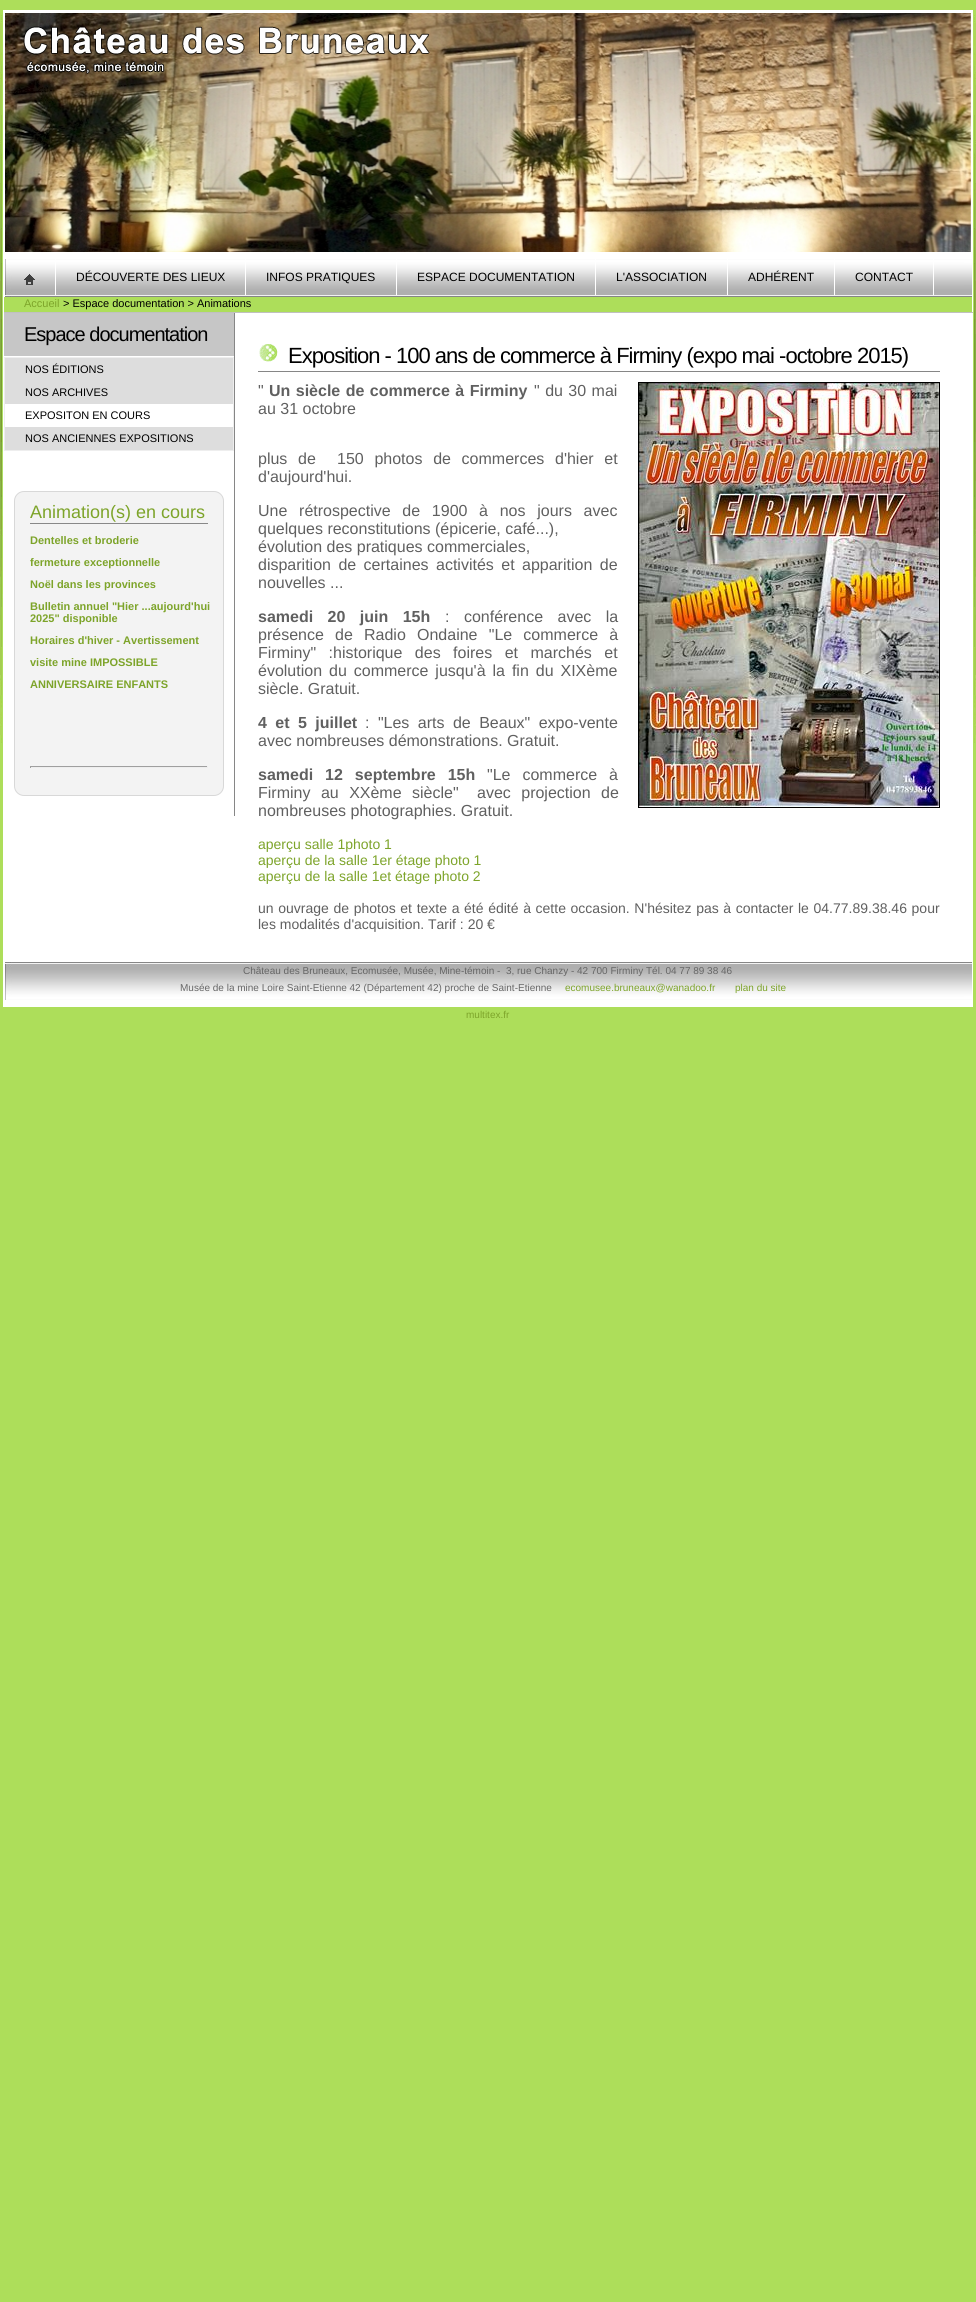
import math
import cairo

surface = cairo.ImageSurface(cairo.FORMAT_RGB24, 976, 2302)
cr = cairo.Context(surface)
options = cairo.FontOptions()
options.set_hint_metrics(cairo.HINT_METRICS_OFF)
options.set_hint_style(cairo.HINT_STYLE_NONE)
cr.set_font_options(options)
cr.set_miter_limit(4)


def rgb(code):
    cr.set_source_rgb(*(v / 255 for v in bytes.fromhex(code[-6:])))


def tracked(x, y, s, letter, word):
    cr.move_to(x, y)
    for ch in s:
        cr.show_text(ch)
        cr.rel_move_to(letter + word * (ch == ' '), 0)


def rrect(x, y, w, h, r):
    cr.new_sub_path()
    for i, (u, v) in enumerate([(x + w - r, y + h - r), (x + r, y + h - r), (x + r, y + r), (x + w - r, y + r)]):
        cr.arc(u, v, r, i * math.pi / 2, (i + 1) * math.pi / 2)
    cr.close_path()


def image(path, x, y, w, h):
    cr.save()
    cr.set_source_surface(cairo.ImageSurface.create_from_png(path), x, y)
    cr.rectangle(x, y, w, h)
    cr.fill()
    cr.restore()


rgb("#adde5a")
cr.paint()
image("img/1.png", 0, 15, 976, 728)
rgb("#ffffff")
cr.rectangle(3, 10, 970, 997)
cr.fill()
image("img/2.png", 5, 13, 966, 239)
image("img/3.png", 23, 26, 407, 48)
image("img/4.png", 5, 259, 967, 38)
cr.rectangle(55, 259, 1, 36)
cr.fill()
image("img/5.png", 24, 274, 11, 11)
for x, y, w, h, color in [
    (245, 259, 1, 36, "#ffffff"),
    (396, 259, 1, 36, "#ffffff"),
    (595, 259, 1, 36, "#ffffff"),
    (727, 259, 1, 36, "#ffffff"),
    (834, 259, 1, 36, "#ffffff"),
    (933, 259, 1, 36, "#ffffff"),
    (4, 297, 968, 15, "#adde5a"),
    (4, 312, 969, 1, "#c0c0c0"),
    (234, 313, 1, 503, "#868686"),
    (4, 313, 230, 43, "#c6c6c6"),
]:
    rgb(color)
    cr.rectangle(x, y, w, h)
    cr.fill()
rgb("#dddddd")
cr.rectangle(4.5, 357.5, 229, 93)
cr.fill_preserve()
rgb("#eeeeee")
cr.set_line_width(1)
cr.stroke()
rgb("#ffffff")
cr.rectangle(5, 404, 228, 23)
cr.fill()
rgb("#f3f3f3")
rrect(14.5, 491.5, 209, 304, 9.5)
cr.fill_preserve()
rgb("#d8d8d8")
cr.stroke()
for x, y, w, h, color in [
    (30, 523, 178, 1, "#888888"),
    (30, 766, 178, 1, "#9f9f9f"),
    (207, 766, 1, 2, "#eeeeee"),
    (30, 767, 178, 1, "#eeeeee"),
    (30, 766, 1, 2, "#9f9f9f"),
]:
    rgb(color)
    cr.rectangle(x, y, w, h)
    cr.fill()
image("img/6.png", 259, 344, 19, 18)
rgb("#868686")
cr.rectangle(258, 371, 682, 1)
cr.fill()
cr.rectangle(638.5, 382.5, 301, 425)
rgb("#000000")
cr.stroke()
image("img/7.png", 639, 383, 300, 424)
image("img/8.png", 5, 962, 967, 38)
cr.select_font_face("Liberation Sans")
cr.set_font_size(12)
for x, y, s in [
    (76, 281, "DÉCOUVERTE DES LIEUX"),
    (266, 281, "INFOS PRATIQUES"),
    (417, 281, "ESPACE DOCUMENTATION"),
    (616, 281, "L'ASSOCIATION"),
    (748, 281, "ADHÉRENT"),
    (855, 281, "CONTACT"),
]:
    cr.move_to(x, y)
    cr.show_text(s)
cr.set_font_size(11)
rgb("#7da42a")
cr.move_to(24, 307)
cr.show_text("Accueil")
rgb("#000000")
cr.move_to(63, 307)
cr.show_text("> Espace documentation > Animations")
cr.set_font_size(20)
tracked(24, 341, "Espace documentation", -1, 0)
cr.set_font_size(11)
for x, y, s in [
    (25, 373, "NOS ÉDITIONS"),
    (25, 396, "NOS ARCHIVES"),
    (25, 419, "EXPOSITON EN COURS"),
    (25, 442, "NOS ANCIENNES EXPOSITIONS"),
]:
    cr.move_to(x, y)
    cr.show_text(s)
cr.set_font_size(18)
rgb("#7da42a")
cr.move_to(30, 518)
cr.show_text("Animation(s) en cours")
cr.select_font_face("Liberation Sans", cairo.FONT_SLANT_NORMAL, cairo.FONT_WEIGHT_BOLD)
cr.set_font_size(11)
for x, y, s in [
    (30, 544, "Dentelles et broderie"),
    (30, 566, "fermeture exceptionnelle"),
    (30, 588, "Noël dans les provinces"),
    (30, 610, "Bulletin annuel \"Hier ...aujourd'hui"),
    (30, 622, "2025\" disponible"),
    (30, 644, "Horaires d'hiver - Avertissement"),
    (30, 666, "visite mine IMPOSSIBLE"),
    (30, 688, "ANNIVERSAIRE ENFANTS"),
]:
    cr.move_to(x, y)
    cr.show_text(s)
cr.select_font_face("Liberation Sans")
cr.set_font_size(22)
rgb("#000000")
tracked(288, 363, "Exposition - 100 ans de commerce à Firminy (expo mai -octobre 2015)", -1, 0)
cr.set_font_size(16)
rgb("#606060")
cr.move_to(258, 396)
cr.show_text("\"")
cr.select_font_face("Liberation Sans", cairo.FONT_SLANT_NORMAL, cairo.FONT_WEIGHT_BOLD)
tracked(269, 396, "Un siècle de commerce à Firminy", 0, 1)
cr.select_font_face("Liberation Sans")
tracked(534, 396, "\" du 30 mai", 0, 1)
cr.move_to(258, 414)
cr.show_text("au 31 octobre")
tracked(258, 464, "plus de", 0, 6.25)
tracked(337, 464, "150 photos de commerces d'hier et", 0, 6.25)
cr.move_to(258, 482)
cr.show_text("d'aujourd'hui.")
tracked(258, 516, "Une rétrospective de 1900 à nos jours avec", 0, 7.25)
cr.move_to(258, 534)
cr.show_text("quelques reconstitutions (épicerie, café...),")
cr.move_to(258, 552)
cr.show_text("évolution des pratiques commerciales,")
tracked(258, 570, "disparition de certaines activités et apparition de", 0, 3)
cr.move_to(258, 588)
cr.show_text("nouvelles ...")
cr.select_font_face("Liberation Sans", cairo.FONT_SLANT_NORMAL, cairo.FONT_WEIGHT_BOLD)
tracked(258, 622, "samedi 20 juin 15h", 0, 10)
cr.select_font_face("Liberation Sans")
tracked(445, 622, ": conférence avec la", 0, 10)
tracked(258, 640, "présence de Radio Ondaine \"Le commerce à", 0, 6.75)
tracked(258, 658, "Firminy\" :historique des foires et marchés et", 0, 8)
tracked(258, 676, "évolution du commerce jusqu'à la fin du XIXème", 0, 2.5)
cr.move_to(258, 694)
cr.show_text("siècle. Gratuit.")
cr.select_font_face("Liberation Sans", cairo.FONT_SLANT_NORMAL, cairo.FONT_WEIGHT_BOLD)
tracked(258, 728, "4 et 5 juillet", 0, 4)
cr.select_font_face("Liberation Sans")
tracked(365, 728, ": \"Les arts de Beaux\" expo-vente", 0, 4)
cr.move_to(258, 746)
cr.show_text("avec nombreuses démonstrations. Gratuit.")
cr.select_font_face("Liberation Sans", cairo.FONT_SLANT_NORMAL, cairo.FONT_WEIGHT_BOLD)
tracked(258, 780, "samedi 12 septembre 15h", 0, 7.5)
cr.select_font_face("Liberation Sans")
tracked(487, 780, "\"Le commerce à", 0, 7.5)
tracked(258, 798, "Firminy au XXème siècle\"", 0, 6)
tracked(477, 798, "avec projection de", 0, 6)
cr.move_to(258, 816)
cr.show_text("nombreuses photographies. Gratuit.")
cr.set_font_size(14)
rgb("#7da42a")
for x, y, s in [
    (258, 849, "aperçu salle 1photo 1"),
    (258, 865, "aperçu de la salle 1er étage photo 1"),
    (258, 881, "aperçu de la salle 1et étage photo 2"),
]:
    cr.move_to(x, y)
    cr.show_text(s)
rgb("#606060")
tracked(258, 913, "un ouvrage de photos et texte a été édité à cette occasion. N'hésitez pas à contacter le 04.77.89.38.46 pour", 0, 0.75)
cr.move_to(258, 929)
cr.show_text("les modalités d'acquisition. Tarif : 20 €")
cr.set_font_size(10)
rgb("#666666")
cr.move_to(243, 974)
cr.show_text("Château des Bruneaux, Ecomusée, Musée, Mine-témoin -  3, rue Chanzy - 42 700 Firminy Tél. 04 77 89 38 46")
cr.move_to(180, 991)
cr.show_text("Musée de la mine Loire Saint-Etienne 42 (Département 42) proche de Saint-Etienne")
rgb("#7da42a")
for x, y, s in [
    (565, 991, "ecomusee.bruneaux@wanadoo.fr"),
    (735, 991, "plan du site"),
    (466, 1018, "multitex.fr"),
]:
    cr.move_to(x, y)
    cr.show_text(s)
surface.write_to_png("page.png")
